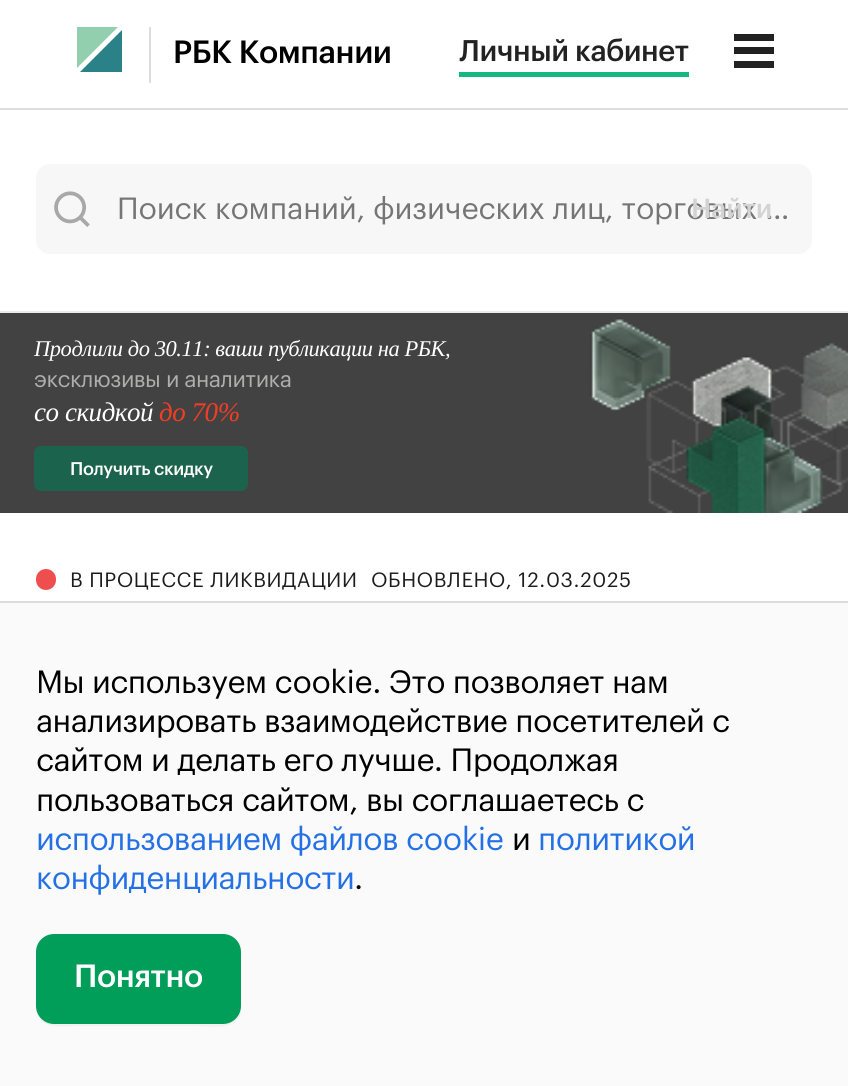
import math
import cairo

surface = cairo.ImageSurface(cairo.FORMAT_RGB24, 848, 1086)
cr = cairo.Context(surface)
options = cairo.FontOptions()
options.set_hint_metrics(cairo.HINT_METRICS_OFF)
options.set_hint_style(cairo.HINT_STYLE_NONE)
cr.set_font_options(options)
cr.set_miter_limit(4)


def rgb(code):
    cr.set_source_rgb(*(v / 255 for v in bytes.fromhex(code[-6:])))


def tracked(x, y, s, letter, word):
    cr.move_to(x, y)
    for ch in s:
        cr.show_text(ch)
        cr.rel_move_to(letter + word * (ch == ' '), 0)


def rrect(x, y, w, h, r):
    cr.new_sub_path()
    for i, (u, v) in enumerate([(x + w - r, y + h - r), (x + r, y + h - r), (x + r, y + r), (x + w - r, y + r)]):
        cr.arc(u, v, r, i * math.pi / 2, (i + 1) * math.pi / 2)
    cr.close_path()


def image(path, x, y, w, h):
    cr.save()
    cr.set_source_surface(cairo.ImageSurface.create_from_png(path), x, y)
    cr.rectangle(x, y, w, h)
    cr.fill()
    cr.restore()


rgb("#ffffff")
cr.paint()
rgb("#dddddd")
cr.rectangle(0, 108, 848, 2)
cr.fill()
cr.save()
cr.rectangle(77, 27, 45, 45)
cr.clip()
rgb("#92cfae")
cr.set_fill_rule(cairo.FILL_RULE_EVEN_ODD)
cr.new_path()
cr.move_to(76, 27)
cr.line_to(76, 69)
cr.line_to(118, 27)
cr.close_path()
cr.fill()
cr.restore()
rgb("#2a8288")
cr.set_fill_rule(cairo.FILL_RULE_EVEN_ODD)
cr.new_path()
cr.move_to(80, 72)
cr.line_to(122, 72)
cr.line_to(122, 30)
cr.close_path()
cr.fill()
for x, y, w, h, color in [
    (149, 27, 2, 56, "#dddddd"),
    (459, 72, 230, 5, "#16b67f"),
    (734, 34, 40, 7, "#222222"),
    (734, 47, 40, 7, "#222222"),
    (734, 61, 40, 7, "#222222"),
    (0, 311, 848, 2, "#ebebeb"),
]:
    rgb(color)
    cr.rectangle(x, y, w, h)
    cr.fill()
rgb("#f7f7f7")
rrect(36, 164, 776, 90, 14)
cr.fill()
image("img/1.png", 54, 191, 36, 36)
rgb("#424242")
cr.rectangle(0, 313, 848, 200)
cr.fill()
rgb("#1c634d")
rrect(34, 446, 214, 45, 7)
cr.fill()
image("img/2.png", 590, 318, 258, 195)
rgb("#ef4e4e")
rrect(36, 569, 20, 21, 10)
cr.fill()
rgb("#fafafa")
cr.rectangle(0, 603, 848, 483)
cr.fill()
rgb("#dddddd")
cr.rectangle(0, 601, 848, 2)
cr.fill()
rgb("#f1f1f1")
cr.set_fill_rule(cairo.FILL_RULE_WINDING)
cr.new_path()
cr.move_to(36, 1006)
cr.curve_to(36, 1032, 64, 1026, 82, 1026)
cr.line_to(195, 1026)
cr.curve_to(208, 1026, 237, 1032, 241, 1012)
cr.line_to(241, 951)
cr.line_to(241, 1006)
cr.curve_to(241, 1016, 233, 1024, 223, 1024)
cr.line_to(54, 1024)
cr.curve_to(44, 1024, 36, 1016, 36, 1006)
cr.close_path()
cr.fill()
rgb("#009e59")
rrect(36, 934, 205, 90, 18)
cr.fill()
cr.select_font_face("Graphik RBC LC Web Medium")
cr.set_font_size(31.5)
rgb("#000000")
tracked(173, 63, "РБК Компании", -0.45, 0)
cr.set_font_size(29.25)
rgb("#222222")
tracked(459, 61, "Личный кабинет", -0.45, 0)
cr.save()
cr.rectangle(117, 196, 673, 29)
cr.clip()
cr.select_font_face("Graphik RBC LC Web")
cr.set_font_size(30)
rgb("#757575")
cr.move_to(117, 219)
cr.show_text("Поиск компаний, физических лиц, торговых …")
cr.restore()
cr.set_font_size(27)
rgb("#d3d3d3")
cr.move_to(691, 218)
cr.show_text("Найти")
cr.select_font_face("Liberation Serif", cairo.FONT_SLANT_ITALIC)
cr.set_font_size(22.5)
rgb("#ffffff")
tracked(34, 356, "Продлили до 30.11: ваши публикации на РБК,", -0.45, 0)
cr.select_font_face("Graphik RBC LC Web")
rgb("#afafae")
tracked(34, 387, "эксклюзивы и аналитика", -0.45, 0)
cr.select_font_face("Liberation Serif", cairo.FONT_SLANT_ITALIC)
cr.set_font_size(27)
rgb("#ffffff")
tracked(34, 421, "со скидкой", -0.45, 0)
rgb("#f33d25")
tracked(159, 421, "до 70%", -0.45, 0)
cr.select_font_face("Graphik RBC LC Web Medium")
cr.set_font_size(18)
rgb("#fbfbf9")
tracked(70, 475, "Получить скидку", -0.45, 0)
cr.select_font_face("Graphik RBC LC Web")
cr.set_font_size(20.25)
rgb("#1c1c1c")
tracked(70, 587, "В ПРОЦЕССЕ ЛИКВИДАЦИИ", 0.6, 0)
tracked(371, 587, "ОБНОВЛЕНО, 12.03.2025", 0.6, 0)
cr.set_font_size(31.5)
rgb("#000000")
for x, y, s in [
    (36, 693, "Мы используем cookie. Это позволяет нам"),
    (36, 732, "анализировать взаимодействие посетителей с"),
    (36, 771, "сайтом и делать его лучше. Продолжая"),
    (36, 811, "пользоваться сайтом, вы соглашаетесь с"),
]:
    tracked(x, y, s, -0.45, 0)
rgb("#2471e5")
tracked(36, 850, "использованием файлов cookie", -0.45, 0)
rgb("#000000")
tracked(512, 850, "и", -0.45, 0)
rgb("#2471e5")
tracked(538, 850, "политикой", -0.45, 0)
tracked(36, 889, "конфиденциальности", -0.45, 0)
rgb("#000000")
tracked(354, 889, ".", -0.45, 0)
cr.select_font_face("Graphik RBC LC Web Medium")
rgb("#ffffff")
tracked(74, 987, "Понятно", -0.45, 0)
surface.write_to_png("page.png")
